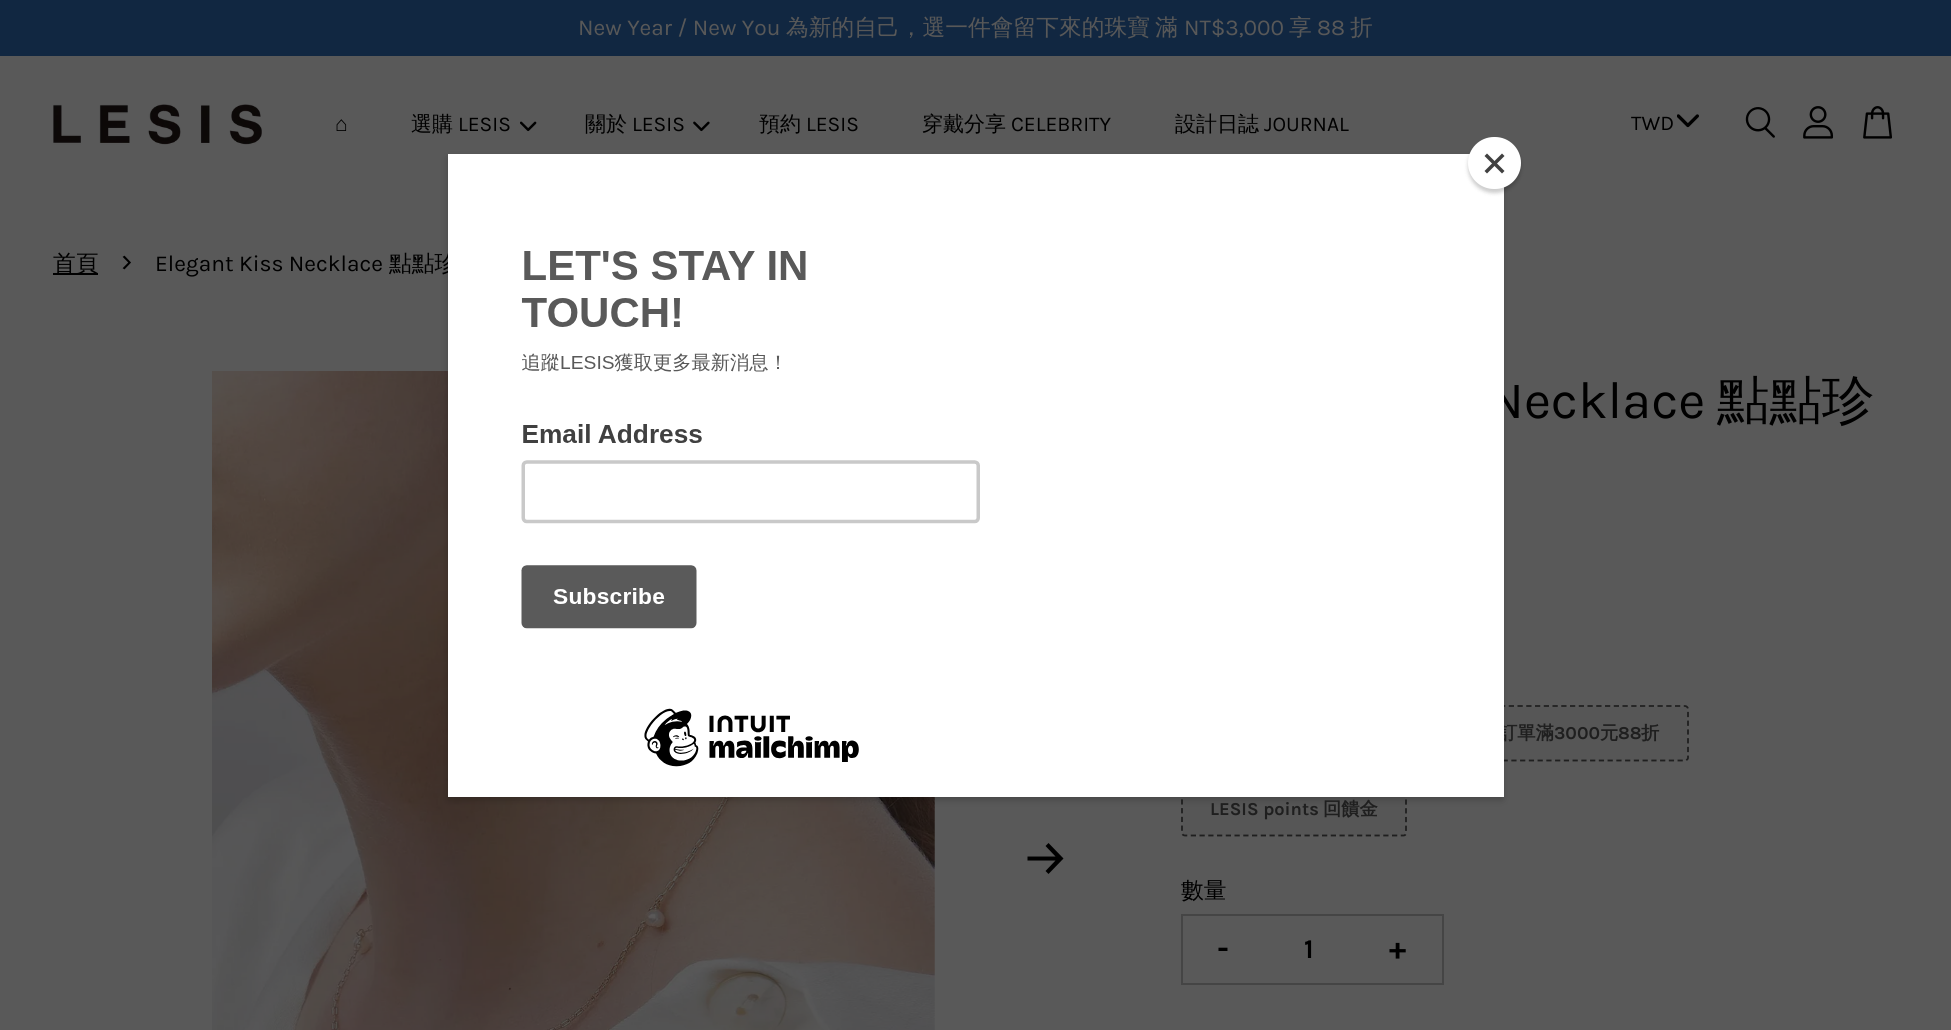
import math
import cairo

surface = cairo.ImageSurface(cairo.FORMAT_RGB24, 1951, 1030)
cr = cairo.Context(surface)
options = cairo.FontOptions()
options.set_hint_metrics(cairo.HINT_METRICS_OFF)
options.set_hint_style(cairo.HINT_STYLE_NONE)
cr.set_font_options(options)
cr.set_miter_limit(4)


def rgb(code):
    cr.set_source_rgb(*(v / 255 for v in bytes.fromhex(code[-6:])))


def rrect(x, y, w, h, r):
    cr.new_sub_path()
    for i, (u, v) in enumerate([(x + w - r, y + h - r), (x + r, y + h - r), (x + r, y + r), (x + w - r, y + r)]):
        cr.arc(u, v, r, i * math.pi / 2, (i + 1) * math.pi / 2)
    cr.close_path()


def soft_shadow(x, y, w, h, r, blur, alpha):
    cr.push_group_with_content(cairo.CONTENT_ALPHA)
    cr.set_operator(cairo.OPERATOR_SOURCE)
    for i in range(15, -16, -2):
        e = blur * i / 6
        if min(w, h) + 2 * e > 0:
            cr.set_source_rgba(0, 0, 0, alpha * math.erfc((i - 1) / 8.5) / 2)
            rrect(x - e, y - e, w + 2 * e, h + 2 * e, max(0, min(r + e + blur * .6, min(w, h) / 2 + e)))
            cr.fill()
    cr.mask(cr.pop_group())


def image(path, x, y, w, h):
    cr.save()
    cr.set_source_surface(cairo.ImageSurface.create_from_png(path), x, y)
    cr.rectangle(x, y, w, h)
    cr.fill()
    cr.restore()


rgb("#595959")
cr.paint()
rgb("#112741")
cr.rectangle(0, 0, 1951, 56)
cr.fill()
image("img/1.png", 53, 104, 209, 41)
image("img/2.png", 520, 121, 17, 11)
image("img/3.png", 693, 121, 17, 11)
image("img/4.png", 1677, 114, 22, 14)
image("img/5.png", 1745, 107, 30, 31)
image("img/6.png", 1803, 106, 31, 33)
image("img/7.png", 1863, 106, 29, 33)
rgb("#000000")
cr.rectangle(53, 273, 45, 2)
cr.fill()
image("img/8.png", 212, 371, 723, 659)
cr.new_path()
cr.move_to(1048.5, 843)
cr.line_to(1045.5, 846)
cr.line_to(1055.5, 856.5)
cr.line_to(1027.5, 856.5)
cr.line_to(1027.5, 860.5)
cr.line_to(1055.5, 860.5)
cr.line_to(1045.5, 871)
cr.line_to(1048.5, 874)
cr.line_to(1063.5, 858.5)
cr.close_path()
cr.fill()
cr.new_path()
cr.move_to(1185, 706)
cr.line_to(1685, 706)
cr.curve_to(1686.5, 706, 1688, 707.5, 1688, 709)
cr.line_to(1688, 758)
cr.curve_to(1688, 759, 1686.5, 760.5, 1685, 760.5)
cr.line_to(1185, 760.5)
cr.curve_to(1183.5, 760.5, 1182, 759, 1182, 758)
cr.line_to(1182, 709)
cr.curve_to(1182, 707.5, 1183.5, 706, 1185, 706)
cr.close_path()
rgb("#1f1f1f")
cr.set_line_width(1.8)
cr.set_dash([5.25, 3.5])
cr.stroke()
cr.set_source_rgba(0.122, 0.122, 0.122, 0.05)
cr.rectangle(1504, 707, 183, 53)
cr.fill()
cr.new_path()
cr.move_to(1185, 783)
cr.line_to(1403.5, 783)
cr.curve_to(1405, 783, 1406, 784.5, 1406, 786)
cr.line_to(1406, 833)
cr.curve_to(1406, 834.5, 1405, 835.5, 1403.5, 835.5)
cr.line_to(1185, 835.5)
cr.curve_to(1183.5, 835.5, 1182, 834.5, 1182, 833)
cr.line_to(1182, 786)
cr.curve_to(1182, 784.5, 1183.5, 783, 1185, 783)
cr.close_path()
rgb("#1f1f1f")
cr.stroke()
cr.set_source_rgba(0.122, 0.122, 0.122, 0.05)
cr.rectangle(1183, 797, 222, 38)
cr.fill()
cr.rectangle(1182, 915, 261, 69)
rgb("#454545")
cr.set_line_width(2)
cr.set_dash([])
cr.stroke()
rgb("#000000")
soft_shadow(448, 158, 1055, 642, 0, 3.5, 0.2)
cr.select_font_face("Karla")
cr.set_font_size(22.75)
rgb("#585858")
cr.move_to(578, 35)
cr.show_text("New Year / New You")
cr.select_font_face("WenQuanYi Zen Hei Medium")
cr.move_to(786, 35)
cr.show_text("為新的自己，選一件會留下來的珠寶")
cr.move_to(1155, 35)
cr.show_text("滿")
cr.select_font_face("Karla")
cr.move_to(1184, 35)
cr.show_text("NT$3,000")
cr.select_font_face("WenQuanYi Zen Hei Medium")
cr.move_to(1289, 35)
cr.show_text("享")
cr.select_font_face("Karla")
cr.move_to(1317, 35)
cr.show_text("88")
cr.select_font_face("WenQuanYi Zen Hei Medium")
cr.move_to(1350, 35)
cr.show_text("折")
cr.select_font_face("Liberation Sans")
cr.set_font_size(21)
rgb("#000000")
cr.move_to(335, 131)
cr.show_text("⌂")
cr.select_font_face("WenQuanYi Zen Hei Medium")
cr.move_to(411, 131)
cr.show_text("選購")
cr.select_font_face("Karla")
cr.move_to(458, 131)
cr.show_text("LESIS")
cr.select_font_face("WenQuanYi Zen Hei Medium")
cr.move_to(585, 131)
cr.show_text("關於")
cr.select_font_face("Karla")
cr.move_to(632, 131)
cr.show_text("LESIS")
cr.select_font_face("WenQuanYi Zen Hei Medium")
cr.move_to(759, 131)
cr.show_text("預約")
cr.select_font_face("Karla")
cr.move_to(806, 131)
cr.show_text("LESIS")
cr.select_font_face("WenQuanYi Zen Hei Medium")
cr.move_to(922, 131)
cr.show_text("穿戴分享")
cr.select_font_face("Karla")
cr.move_to(1011, 131)
cr.show_text("CELEBRITY")
cr.select_font_face("WenQuanYi Zen Hei Medium")
cr.move_to(1175, 131)
cr.show_text("設計日誌")
cr.select_font_face("Karla")
cr.move_to(1264, 131)
cr.show_text("JOURNAL")
cr.move_to(1631, 130)
cr.show_text("TWD")
cr.select_font_face("WenQuanYi Zen Hei Medium")
cr.set_font_size(22.75)
cr.move_to(53, 271)
cr.show_text("首頁")
cr.select_font_face("Karla")
cr.set_font_size(32)
cr.move_to(121, 271)
cr.show_text("›")
cr.set_font_size(22.75)
cr.move_to(155, 271)
cr.show_text("Elegant Kiss Necklace")
cr.select_font_face("WenQuanYi Zen Hei Medium")
cr.move_to(389, 271)
cr.show_text("點點珍")
cr.select_font_face("Karla")
cr.set_font_size(52.5)
cr.move_to(1488, 418)
cr.show_text("Necklace")
cr.select_font_face("WenQuanYi Zen Hei Medium")
cr.move_to(1717, 418)
cr.show_text("點點珍")
cr.select_font_face("WenQuanYi Zen Hei", cairo.FONT_SLANT_NORMAL, cairo.FONT_WEIGHT_BOLD)
cr.set_font_size(18.25)
rgb("#1f1f1f")
cr.move_to(1499, 739)
cr.show_text("訂單滿")
cr.select_font_face("Karla", cairo.FONT_SLANT_NORMAL, cairo.FONT_WEIGHT_BOLD)
cr.move_to(1554, 739)
cr.show_text("3000")
cr.select_font_face("WenQuanYi Zen Hei", cairo.FONT_SLANT_NORMAL, cairo.FONT_WEIGHT_BOLD)
cr.move_to(1600, 739)
cr.show_text("元")
cr.select_font_face("Karla", cairo.FONT_SLANT_NORMAL, cairo.FONT_WEIGHT_BOLD)
cr.move_to(1618, 739)
cr.show_text("88")
cr.select_font_face("WenQuanYi Zen Hei", cairo.FONT_SLANT_NORMAL, cairo.FONT_WEIGHT_BOLD)
cr.move_to(1641, 739)
cr.show_text("折")
cr.select_font_face("Karla", cairo.FONT_SLANT_NORMAL, cairo.FONT_WEIGHT_BOLD)
cr.move_to(1210, 815)
cr.show_text("LESIS points")
cr.select_font_face("WenQuanYi Zen Hei", cairo.FONT_SLANT_NORMAL, cairo.FONT_WEIGHT_BOLD)
cr.move_to(1323, 815)
cr.show_text("回饋金")
cr.select_font_face("WenQuanYi Zen Hei Medium")
cr.set_font_size(22.75)
rgb("#000000")
cr.move_to(1181, 898)
cr.show_text("數量")
cr.select_font_face("Karla", cairo.FONT_SLANT_NORMAL, cairo.FONT_WEIGHT_BOLD)
cr.set_font_size(32)
cr.move_to(1217, 959)
cr.show_text("-")
cr.set_font_size(27)
cr.move_to(1304, 958)
cr.show_text("1")
cr.set_font_size(32)
cr.move_to(1389, 959)
cr.show_text("+")
image("img/9.png", 448, 154, 1056, 643)
rgb("#000000")
soft_shadow(1468, 140, 53, 53, 26.5, 2, 0.2)
rgb("#ffffff")
rrect(1468, 137, 53, 52, 26)
cr.fill()
rgb("#414141")
cr.new_path()
cr.move_to(1502, 153.5)
cr.line_to(1504.5, 156)
cr.line_to(1487, 173.5)
cr.line_to(1484.5, 171)
cr.close_path()
cr.fill()
cr.new_path()
cr.move_to(1484.5, 156)
cr.line_to(1487, 153.5)
cr.line_to(1504.5, 171)
cr.line_to(1502, 173.5)
cr.close_path()
cr.fill()
surface.write_to_png("page.png")
